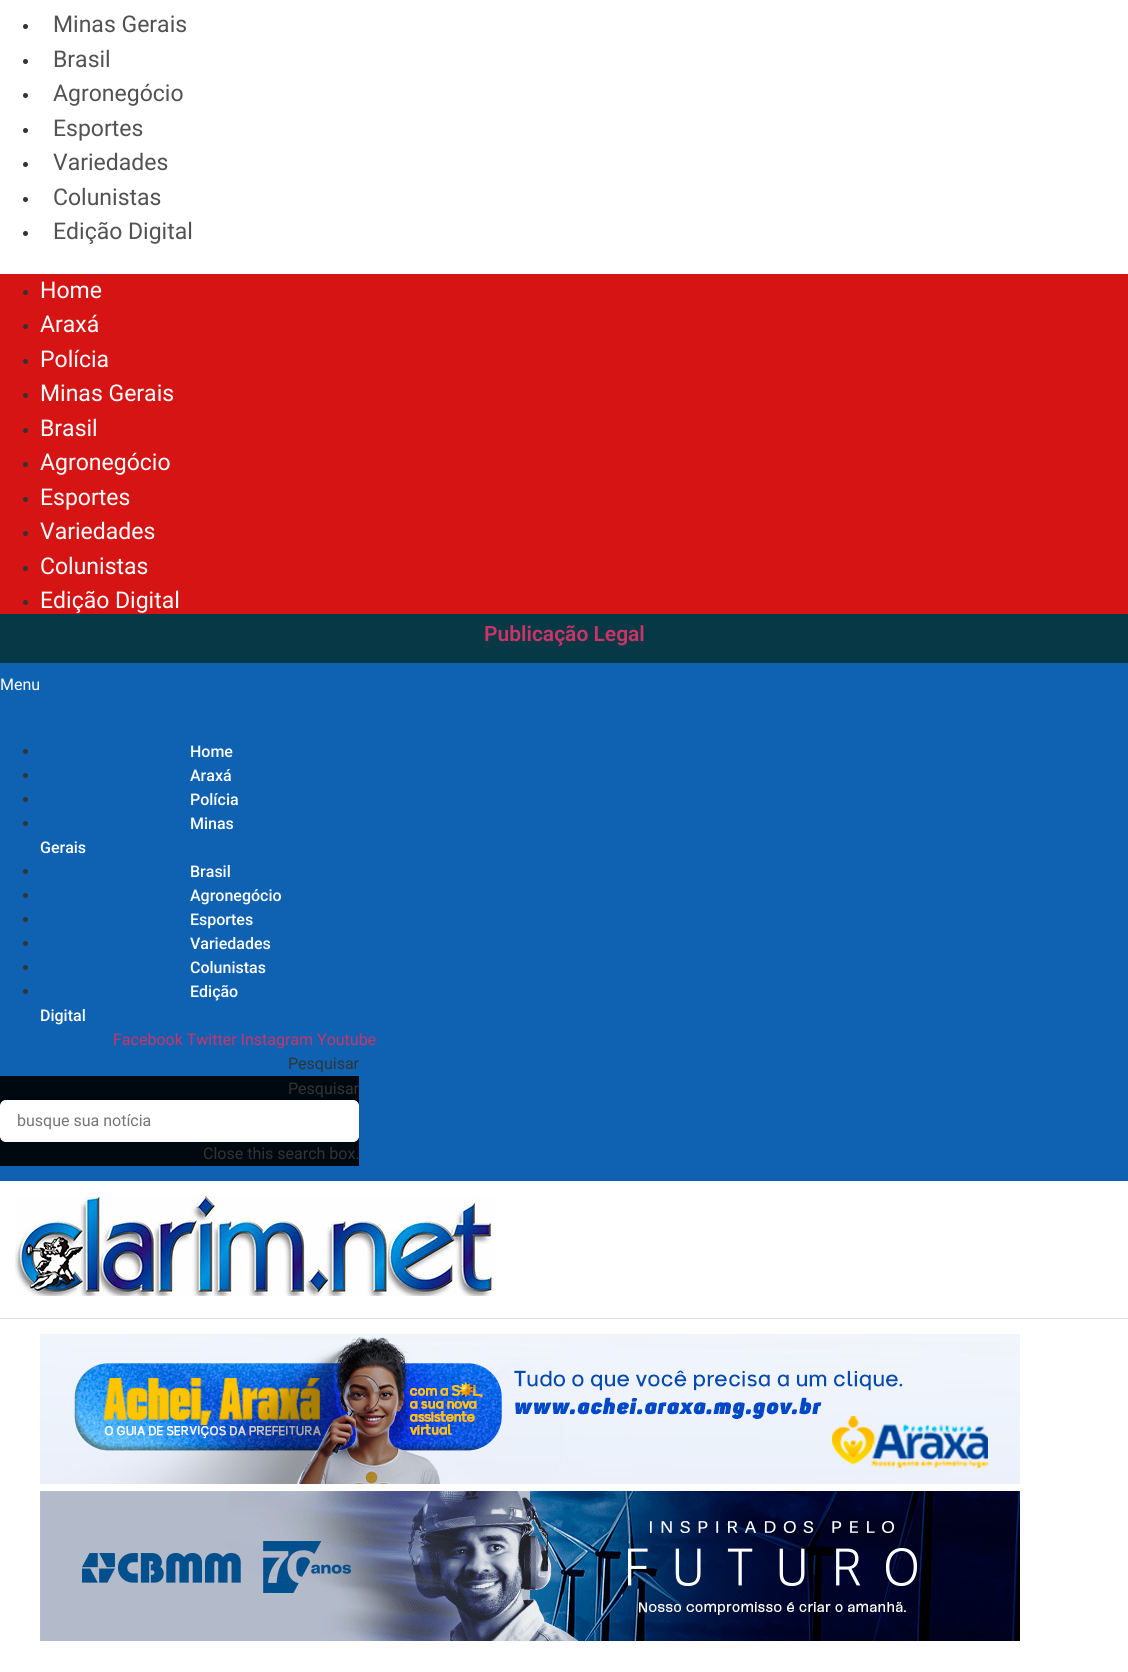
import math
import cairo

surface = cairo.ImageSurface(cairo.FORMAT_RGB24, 1128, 1672)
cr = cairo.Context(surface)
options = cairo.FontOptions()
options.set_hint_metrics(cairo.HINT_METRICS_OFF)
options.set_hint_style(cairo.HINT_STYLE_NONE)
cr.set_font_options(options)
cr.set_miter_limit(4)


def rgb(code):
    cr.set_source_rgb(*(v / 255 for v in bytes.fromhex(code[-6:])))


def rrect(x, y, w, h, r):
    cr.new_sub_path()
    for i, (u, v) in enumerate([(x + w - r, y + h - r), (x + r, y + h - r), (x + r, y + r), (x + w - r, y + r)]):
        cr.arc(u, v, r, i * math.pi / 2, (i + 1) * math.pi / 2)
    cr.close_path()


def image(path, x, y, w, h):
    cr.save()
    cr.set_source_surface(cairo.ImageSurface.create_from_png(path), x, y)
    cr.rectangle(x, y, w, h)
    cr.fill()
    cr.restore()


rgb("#ffffff")
cr.paint()
rgb("#333333")
cr.arc(25.5, 26.5, 2.5, 0, 2 * math.pi)
cr.fill()
cr.arc(25.5, 61.5, 2.5, 0, 2 * math.pi)
cr.fill()
cr.arc(25.5, 95.5, 2.5, 0, 2 * math.pi)
cr.fill()
cr.arc(25.5, 130.5, 2.5, 0, 2 * math.pi)
cr.fill()
cr.arc(25.5, 164.5, 2.5, 0, 2 * math.pi)
cr.fill()
cr.arc(25.5, 199.5, 2.5, 0, 2 * math.pi)
cr.fill()
cr.arc(25.5, 233.5, 2.5, 0, 2 * math.pi)
cr.fill()
rgb("#d61414")
cr.rectangle(0, 274, 1128, 340)
cr.fill()
rgb("#333333")
cr.arc(25.5, 292.5, 2.5, 0, 2 * math.pi)
cr.fill()
cr.arc(25.5, 326.5, 2.5, 0, 2 * math.pi)
cr.fill()
cr.arc(25.5, 361.5, 2.5, 0, 2 * math.pi)
cr.fill()
cr.arc(25.5, 395.5, 2.5, 0, 2 * math.pi)
cr.fill()
cr.arc(25.5, 430.5, 2.5, 0, 2 * math.pi)
cr.fill()
cr.arc(25.5, 464.5, 2.5, 0, 2 * math.pi)
cr.fill()
cr.arc(25.5, 499.5, 2.5, 0, 2 * math.pi)
cr.fill()
cr.arc(25.5, 533.5, 2.5, 0, 2 * math.pi)
cr.fill()
cr.arc(25.5, 568.5, 2.5, 0, 2 * math.pi)
cr.fill()
cr.arc(25.5, 602.5, 2.5, 0, 2 * math.pi)
cr.fill()
rgb("#063846")
cr.rectangle(0, 614, 1128, 49)
cr.fill()
rgb("#0f62b2")
cr.rectangle(0, 663, 1128, 518)
cr.fill()
rgb("#333333")
cr.arc(25.5, 751.5, 2.5, 0, 2 * math.pi)
cr.fill()
cr.arc(25.5, 775.5, 2.5, 0, 2 * math.pi)
cr.fill()
cr.arc(25.5, 799.5, 2.5, 0, 2 * math.pi)
cr.fill()
cr.arc(25.5, 823.5, 2.5, 0, 2 * math.pi)
cr.fill()
cr.arc(25.5, 871.5, 2.5, 0, 2 * math.pi)
cr.fill()
cr.arc(25.5, 895.5, 2.5, 0, 2 * math.pi)
cr.fill()
cr.arc(25.5, 919.5, 2.5, 0, 2 * math.pi)
cr.fill()
cr.arc(25.5, 943.5, 2.5, 0, 2 * math.pi)
cr.fill()
cr.arc(25.5, 967.5, 2.5, 0, 2 * math.pi)
cr.fill()
cr.arc(25.5, 991.5, 2.5, 0, 2 * math.pi)
cr.fill()
rgb("#010910")
cr.rectangle(0, 1076, 359, 90)
cr.fill()
rgb("#ffffff")
rrect(0.5, 1100.5, 358, 41, 5.5)
cr.fill_preserve()
cr.set_line_width(1)
cr.stroke()
rgb("#e0e0e0")
cr.rectangle(0, 1318, 1128, 1)
cr.fill()
image("img/1.png", 15, 1196, 480, 100)
image("img/2.png", 40, 1334, 980, 150)
image("img/3.png", 40, 1491, 980, 150)
cr.select_font_face("Roboto")
cr.set_font_size(23)
rgb("#525252")
for x, y, s in [
    (53, 32, "Minas Gerais"),
    (53, 67, "Brasil"),
    (53, 101, "Agronegócio"),
    (53, 136, "Esportes"),
    (53, 170, "Variedades"),
    (53, 205, "Colunistas"),
    (53, 239, "Edição Digital"),
]:
    cr.move_to(x, y)
    cr.show_text(s)
rgb("#ffffff")
for x, y, s in [
    (40, 298, "Home"),
    (40, 332, "Araxá"),
    (40, 367, "Polícia"),
    (40, 401, "Minas Gerais"),
    (40, 436, "Brasil"),
    (40, 470, "Agronegócio"),
    (40, 505, "Esportes"),
    (40, 539, "Variedades"),
    (40, 574, "Colunistas"),
    (40, 608, "Edição Digital"),
]:
    cr.move_to(x, y)
    cr.show_text(s)
cr.select_font_face("Roboto SemiBold")
cr.set_font_size(21)
rgb("#cc3366")
cr.move_to(484, 641)
cr.show_text("Publicação Legal")
cr.select_font_face("Roboto")
cr.set_font_size(16)
rgb("#ffffff")
cr.move_to(0, 690)
cr.show_text("Menu")
cr.select_font_face("Roboto Medium")
for x, y, s in [
    (190, 757, "Home"),
    (190, 781, "Araxá"),
    (190, 805, "Polícia"),
    (190, 829, "Minas"),
    (40, 853, "Gerais"),
    (190, 877, "Brasil"),
    (190, 901, "Agronegócio"),
    (190, 925, "Esportes"),
    (190, 949, "Variedades"),
    (190, 973, "Colunistas"),
    (190, 997, "Edição"),
    (40, 1021, "Digital"),
]:
    cr.move_to(x, y)
    cr.show_text(s)
cr.select_font_face("Roboto")
rgb("#cc3366")
cr.move_to(113, 1045)
cr.show_text("Facebook Twitter Instagram Youtube")
rgb("#333333")
cr.move_to(288, 1069)
cr.show_text("Pesquisar")
cr.move_to(288, 1094)
cr.show_text("Pesquisar")
rgb("#757575")
cr.move_to(17, 1126)
cr.show_text("busque sua notícia")
rgb("#333333")
cr.move_to(203, 1159)
cr.show_text("Close this search box.")
surface.write_to_png("page.png")
